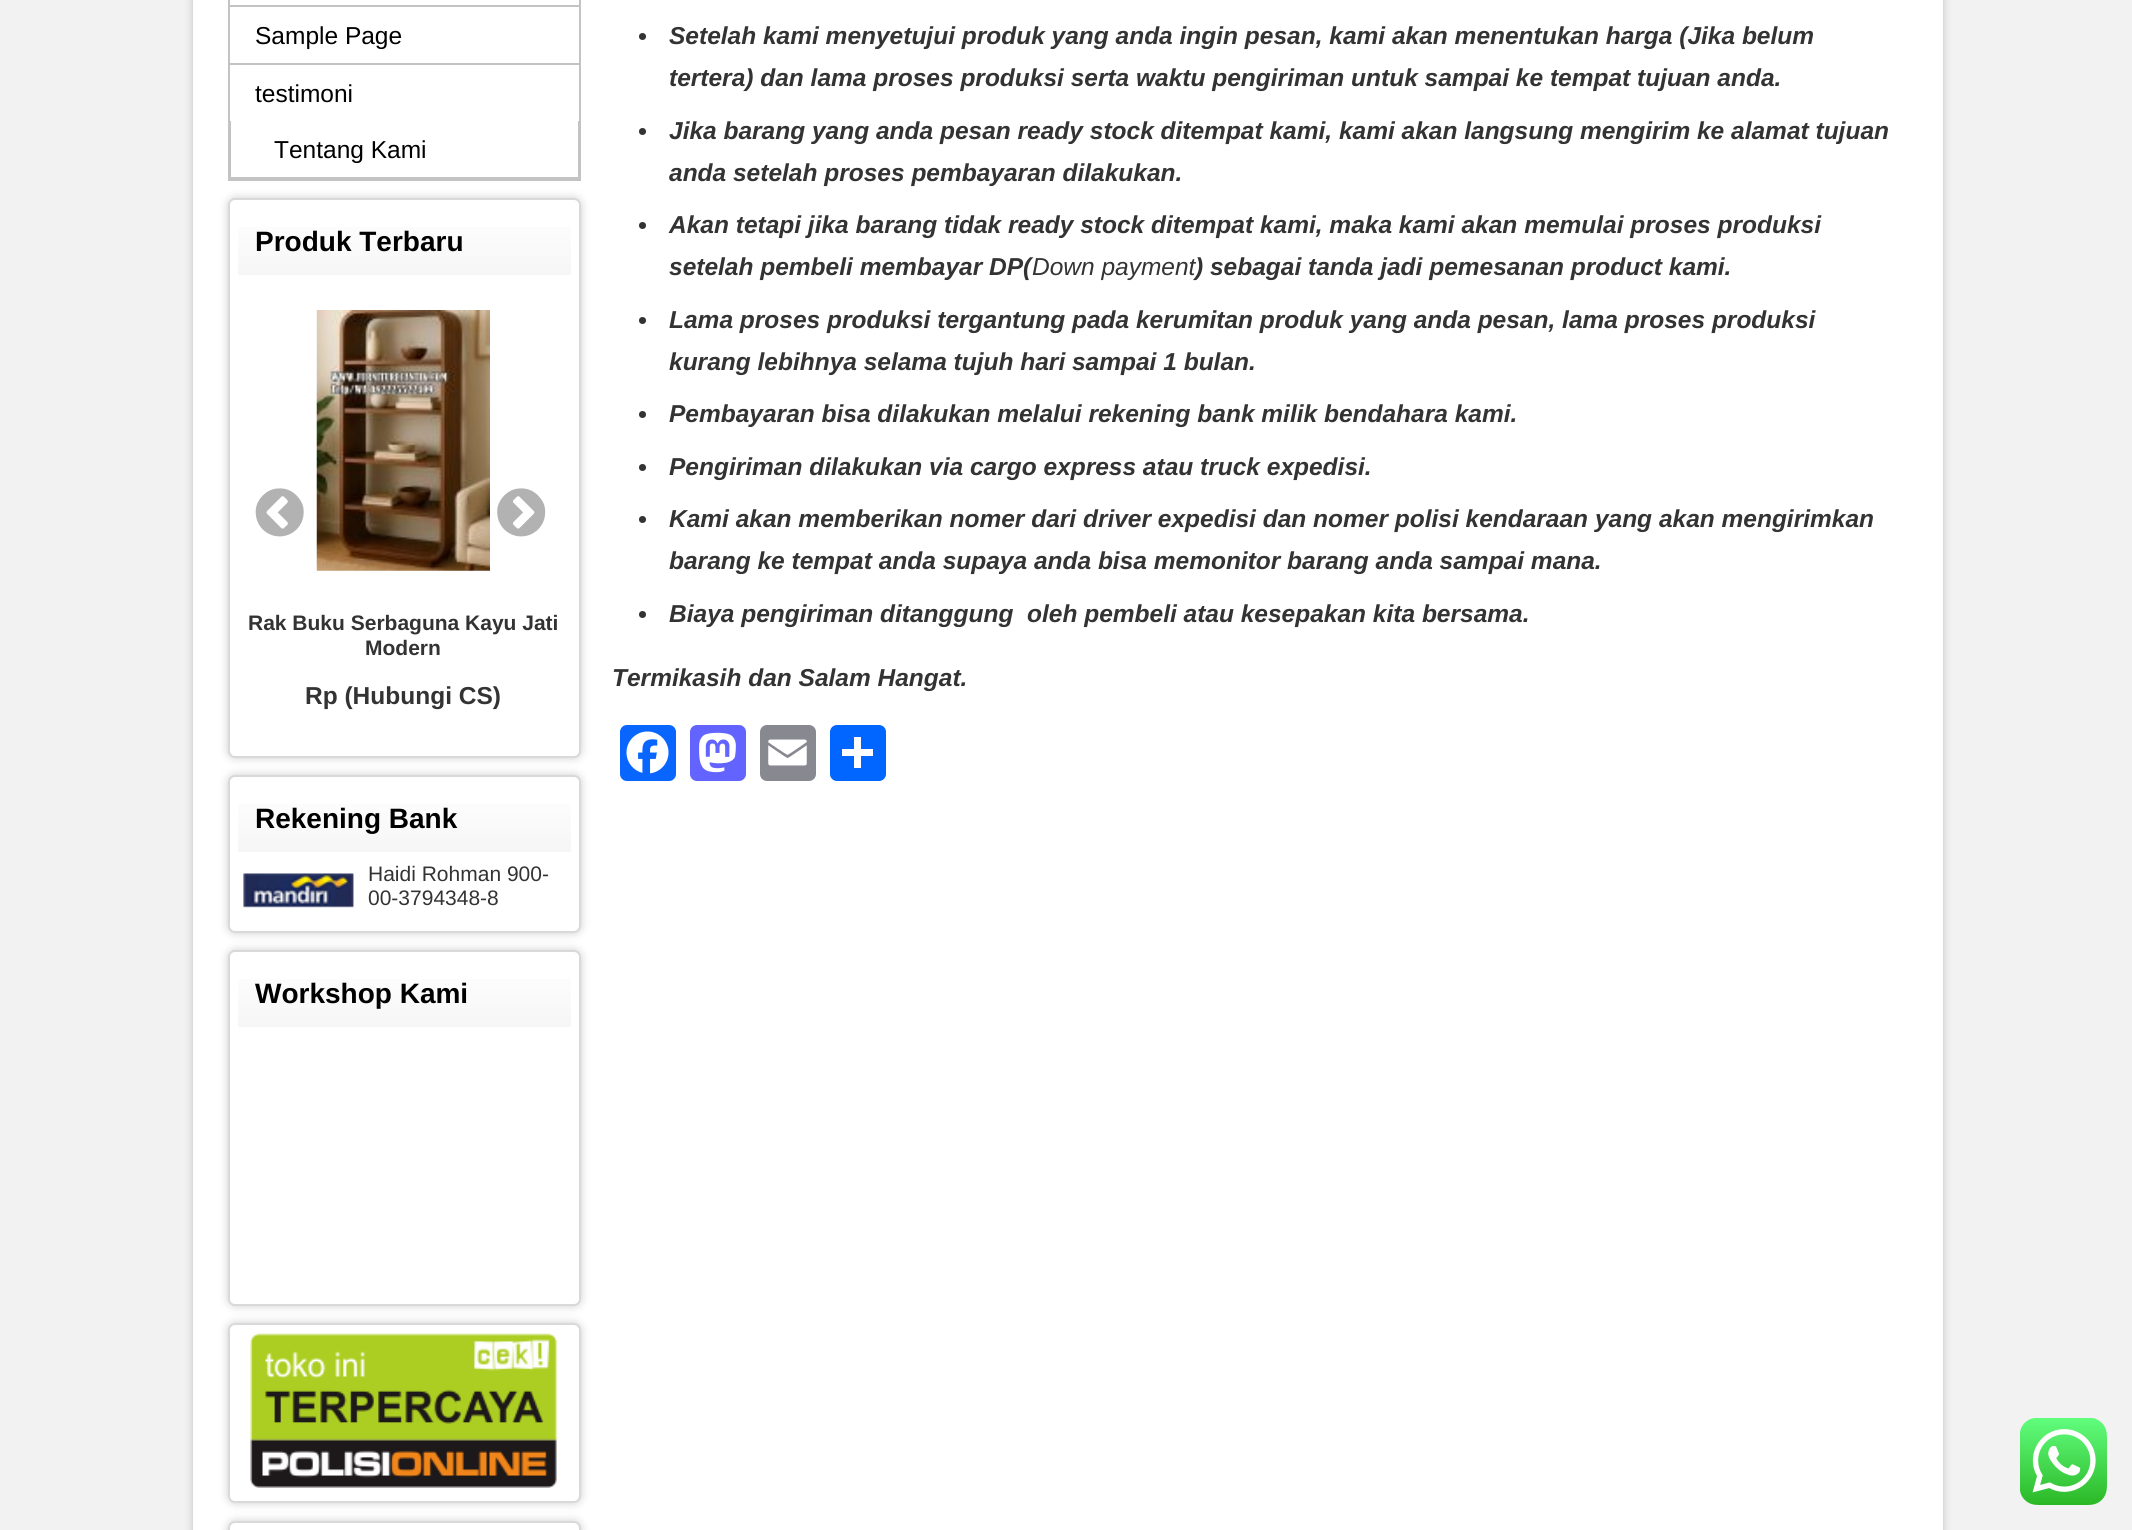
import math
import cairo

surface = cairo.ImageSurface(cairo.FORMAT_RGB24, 2132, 1530)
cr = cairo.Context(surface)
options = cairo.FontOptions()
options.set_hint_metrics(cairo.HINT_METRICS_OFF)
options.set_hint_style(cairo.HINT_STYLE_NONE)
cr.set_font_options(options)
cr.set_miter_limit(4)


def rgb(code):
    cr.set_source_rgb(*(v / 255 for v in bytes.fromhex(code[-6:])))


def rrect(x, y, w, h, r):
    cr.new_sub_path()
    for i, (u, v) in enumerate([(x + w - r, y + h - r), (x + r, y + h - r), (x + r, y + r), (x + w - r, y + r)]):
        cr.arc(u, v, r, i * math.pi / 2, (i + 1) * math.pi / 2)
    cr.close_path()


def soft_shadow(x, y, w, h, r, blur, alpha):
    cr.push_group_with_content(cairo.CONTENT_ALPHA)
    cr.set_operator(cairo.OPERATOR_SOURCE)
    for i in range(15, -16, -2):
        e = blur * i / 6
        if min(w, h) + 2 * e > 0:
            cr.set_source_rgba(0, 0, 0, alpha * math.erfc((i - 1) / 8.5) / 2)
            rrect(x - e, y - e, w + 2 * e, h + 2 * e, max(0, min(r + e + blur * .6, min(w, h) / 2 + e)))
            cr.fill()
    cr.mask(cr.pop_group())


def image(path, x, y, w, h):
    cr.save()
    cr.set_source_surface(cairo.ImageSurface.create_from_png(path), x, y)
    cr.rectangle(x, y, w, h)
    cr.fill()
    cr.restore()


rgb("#f2f2f2")
cr.paint()
rgb("#000000")
soft_shadow(193, -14, 1750, 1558, 0, 4.5, 0.2)
for x, y, w, h, color in [
    (193, 0, 1750, 1530, "#ffffff"),
    (579, 0, 2, 180, "#c3c3c3"),
    (228, 5, 353, 2, "#c3c3c3"),
    (228, 0, 2, 7, "#c3c3c3"),
    (228, 63, 353, 2, "#c3c3c3"),
    (228, 7, 2, 58, "#c3c3c3"),
    (228, 179, 353, 2, "#c3c3c3"),
    (228, 65, 2, 115, "#c3c3c3"),
    (578, 121, 1, 58, "#c3c3c3"),
    (229, 177, 350, 2, "#c3c3c3"),
    (230, 121, 1, 58, "#c3c3c3"),
]:
    rgb(color)
    cr.rectangle(x, y, w, h)
    cr.fill()
rgb("#000000")
soft_shadow(228, 198, 353, 560, 7, 4.5, 0.2)
rgb("#ffffff")
rrect(229, 199, 351, 558, 6)
cr.fill_preserve()
rgb("#d9d9d9")
cr.stroke()
gradient = cairo.LinearGradient(404, 208, 404, 275)
gradient.add_color_stop_rgba(0, 1, 1, 1, 1)
gradient.add_color_stop_rgba(1, 0.965, 0.965, 0.965, 1)
cr.set_source(gradient)
cr.rectangle(238, 227, 333, 48)
cr.fill()
image("img/1.png", 255, 488, 49, 49)
image("img/2.png", 497, 488, 49, 49)
image("img/3.png", 316, 310, 174, 261)
rgb("#000000")
soft_shadow(228, 775, 353, 158, 7, 4.5, 0.2)
rgb("#ffffff")
rrect(229, 776, 351, 156, 6)
cr.fill_preserve()
rgb("#d9d9d9")
cr.stroke()
gradient = cairo.LinearGradient(404, 786, 404, 852)
gradient.add_color_stop_rgba(0, 1, 1, 1, 1)
gradient.add_color_stop_rgba(1, 0.965, 0.965, 0.965, 1)
cr.set_source(gradient)
cr.rectangle(238, 804, 333, 48)
cr.fill()
image("img/4.png", 243, 873, 111, 35)
rgb("#000000")
soft_shadow(228, 950, 353, 356, 7, 4.5, 0.2)
rgb("#ffffff")
rrect(229, 951, 351, 354, 6)
cr.fill_preserve()
rgb("#d9d9d9")
cr.stroke()
gradient = cairo.LinearGradient(404, 961, 404, 1027)
gradient.add_color_stop_rgba(0, 1, 1, 1, 1)
gradient.add_color_stop_rgba(1, 0.965, 0.965, 0.965, 1)
cr.set_source(gradient)
cr.rectangle(238, 979, 333, 48)
cr.fill()
rgb("#000000")
soft_shadow(228, 1323, 353, 180, 7, 4.5, 0.2)
rgb("#ffffff")
rrect(229, 1324, 351, 178, 6)
cr.fill_preserve()
rgb("#d9d9d9")
cr.stroke()
image("img/5.png", 250, 1333, 307, 155)
rgb("#000000")
soft_shadow(228, 1521, 353, 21, 7, 4.5, 0.2)
rgb("#ffffff")
rrect(229, 1522, 351, 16, 6)
cr.fill_preserve()
rgb("#d9d9d9")
cr.stroke()
rgb("#333333")
cr.arc(642.5, 36.5, 3.5, 0, 2 * math.pi)
cr.fill()
cr.arc(642.5, 131.5, 3.5, 0, 2 * math.pi)
cr.fill()
cr.arc(642.5, 225.5, 3.5, 0, 2 * math.pi)
cr.fill()
cr.arc(642.5, 320.5, 3.5, 0, 2 * math.pi)
cr.fill()
cr.arc(642.5, 414.5, 3.5, 0, 2 * math.pi)
cr.fill()
cr.arc(642.5, 467.5, 3.5, 0, 2 * math.pi)
cr.fill()
cr.arc(642.5, 519.5, 3.5, 0, 2 * math.pi)
cr.fill()
cr.arc(642.5, 614.5, 3.5, 0, 2 * math.pi)
cr.fill()
rgb("#0866ff")
rrect(620, 725, 56, 56, 7)
cr.fill()
image("img/6.png", 626, 731, 43, 43)
rgb("#6364ff")
rrect(690, 725, 56, 56, 7)
cr.fill()
image("img/7.png", 699, 732, 37, 41)
rgb("#888990")
rrect(760, 725, 56, 56, 7)
cr.fill()
image("img/8.png", 768, 739, 39, 27)
rgb("#0166ff")
rrect(830, 725, 56, 56, 7)
cr.fill()
rgb("#ffffff")
cr.rectangle(854, 737, 7, 31)
cr.fill()
cr.rectangle(842, 749, 31, 7)
cr.fill()
image("img/9.png", 2020, 1418, 87, 87)
cr.select_font_face("Liberation Sans")
cr.set_font_size(24.5)
rgb("#000000")
for x, y, s in [
    (255, 44, "Sample Page"),
    (255, 102, "testimoni"),
    (274, 158, "Tentang Kami"),
]:
    cr.move_to(x, y)
    cr.show_text(s)
cr.select_font_face("Liberation Sans", cairo.FONT_SLANT_NORMAL, cairo.FONT_WEIGHT_BOLD)
cr.set_font_size(28)
cr.move_to(255, 251)
cr.show_text("Produk Terbaru")
cr.set_font_size(21)
rgb("#333333")
cr.move_to(248, 630)
cr.show_text("Rak Buku Serbaguna Kayu Jati")
cr.move_to(365, 655)
cr.show_text("Modern")
cr.set_font_size(24.5)
cr.move_to(305, 704)
cr.show_text("Rp (Hubungi CS)")
cr.set_font_size(28)
rgb("#000000")
cr.move_to(255, 828)
cr.show_text("Rekening Bank")
cr.select_font_face("Liberation Sans")
cr.set_font_size(21)
rgb("#333333")
cr.move_to(368, 881)
cr.show_text("Haidi Rohman 900-")
cr.move_to(368, 905)
cr.show_text("00-3794348-8")
cr.select_font_face("Liberation Sans", cairo.FONT_SLANT_NORMAL, cairo.FONT_WEIGHT_BOLD)
cr.set_font_size(28)
rgb("#000000")
cr.move_to(255, 1003)
cr.show_text("Workshop Kami")
cr.select_font_face("Liberation Sans", cairo.FONT_SLANT_ITALIC, cairo.FONT_WEIGHT_BOLD)
cr.set_font_size(24.5)
rgb("#333333")
for x, y, s in [
    (669, 44, "Setelah kami menyetujui produk yang anda ingin pesan, kami akan menentukan harga (Jika belum"),
    (669, 86, "tertera) dan lama proses produksi serta waktu pengiriman untuk sampai ke tempat tujuan anda."),
    (669, 139, "Jika barang yang anda pesan ready stock ditempat kami, kami akan langsung mengirim ke alamat tujuan"),
    (669, 181, "anda setelah proses pembayaran dilakukan."),
    (669, 233, "Akan tetapi jika barang tidak ready stock ditempat kami, maka kami akan memulai proses produksi"),
    (669, 275, "setelah pembeli membayar DP("),
]:
    cr.move_to(x, y)
    cr.show_text(s)
cr.select_font_face("Liberation Sans", cairo.FONT_SLANT_ITALIC)
cr.move_to(1032, 275)
cr.show_text("Down payment")
cr.select_font_face("Liberation Sans", cairo.FONT_SLANT_ITALIC, cairo.FONT_WEIGHT_BOLD)
for x, y, s in [
    (1195, 275, ") sebagai tanda jadi pemesanan product kami."),
    (669, 328, "Lama proses produksi tergantung pada kerumitan produk yang anda pesan, lama proses produksi"),
    (669, 370, "kurang lebihnya selama tujuh hari sampai 1 bulan."),
    (669, 422, "Pembayaran bisa dilakukan melalui rekening bank milik bendahara kami."),
    (669, 475, "Pengiriman dilakukan via cargo express atau truck expedisi."),
    (669, 527, "Kami akan memberikan nomer dari driver expedisi dan nomer polisi kendaraan yang akan mengirimkan"),
    (669, 569, "barang ke tempat anda supaya anda bisa memonitor barang anda sampai mana."),
    (669, 622, "Biaya pengiriman ditanggung  oleh pembeli atau kesepakan kita bersama."),
    (612, 686, "Termikasih dan Salam Hangat."),
]:
    cr.move_to(x, y)
    cr.show_text(s)
surface.write_to_png("page.png")
